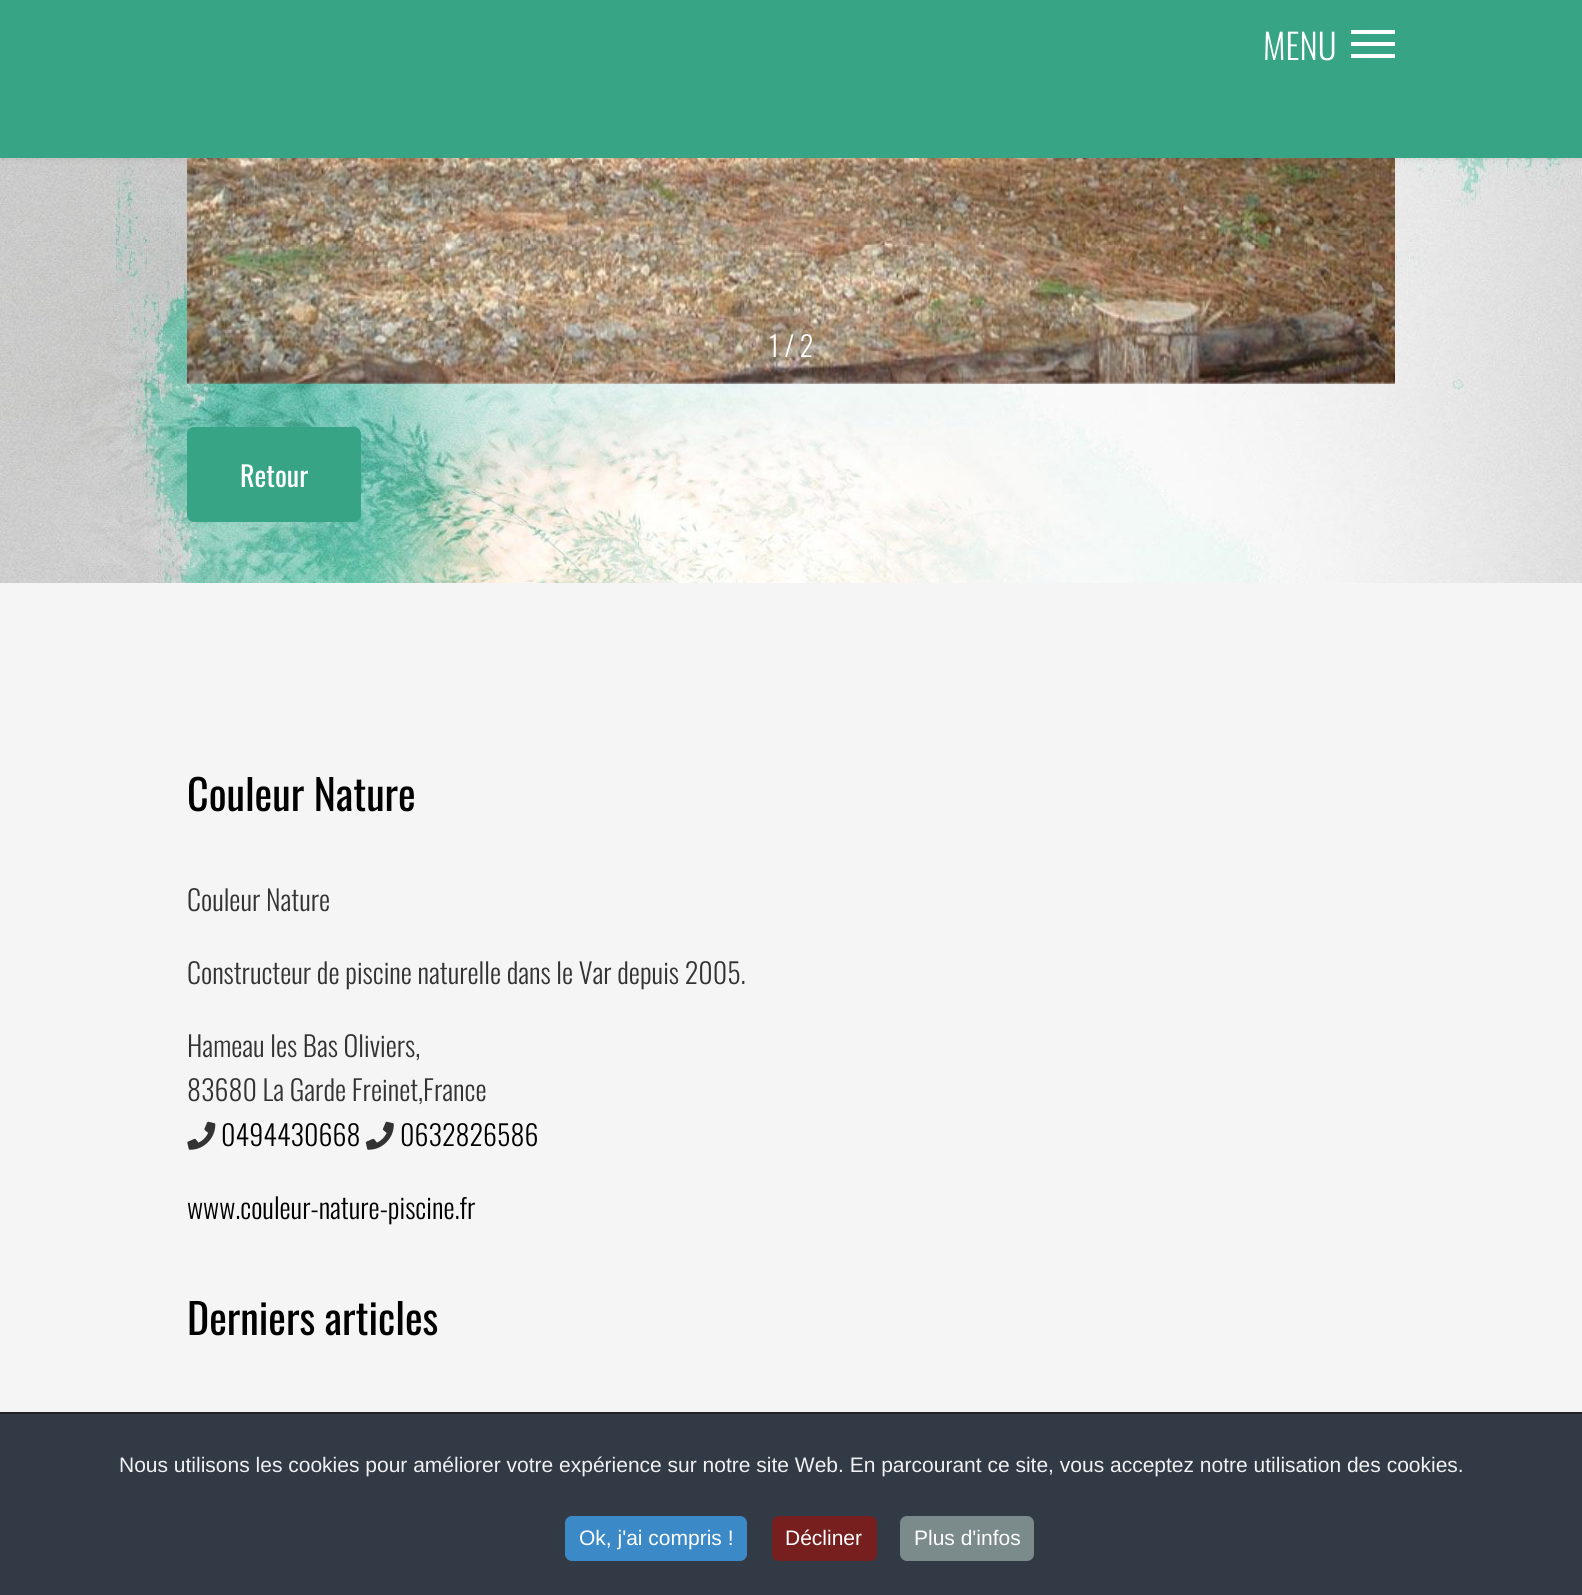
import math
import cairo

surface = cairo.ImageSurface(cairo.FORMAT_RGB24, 1582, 1595)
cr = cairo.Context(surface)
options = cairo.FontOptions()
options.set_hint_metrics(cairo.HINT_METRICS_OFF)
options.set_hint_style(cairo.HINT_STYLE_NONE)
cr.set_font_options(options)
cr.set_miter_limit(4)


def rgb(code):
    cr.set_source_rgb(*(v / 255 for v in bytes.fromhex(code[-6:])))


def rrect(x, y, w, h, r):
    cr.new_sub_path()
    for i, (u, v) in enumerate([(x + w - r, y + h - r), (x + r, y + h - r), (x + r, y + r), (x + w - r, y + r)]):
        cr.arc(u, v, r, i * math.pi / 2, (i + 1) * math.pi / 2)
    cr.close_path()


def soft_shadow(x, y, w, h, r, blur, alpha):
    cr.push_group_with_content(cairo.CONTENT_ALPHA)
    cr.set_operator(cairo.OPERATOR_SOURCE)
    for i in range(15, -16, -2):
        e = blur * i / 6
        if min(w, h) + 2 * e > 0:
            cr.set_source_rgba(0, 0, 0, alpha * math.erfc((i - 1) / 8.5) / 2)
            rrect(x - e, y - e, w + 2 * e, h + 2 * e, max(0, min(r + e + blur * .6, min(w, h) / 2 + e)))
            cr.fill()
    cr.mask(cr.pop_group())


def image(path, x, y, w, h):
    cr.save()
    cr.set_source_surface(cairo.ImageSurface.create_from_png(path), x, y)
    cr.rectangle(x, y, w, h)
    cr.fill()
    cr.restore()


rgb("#ffffff")
cr.paint()
image("img/1.png", 0, 158, 1582, 425)
image("img/2.png", 187, 158, 1208, 226)
rgb("#000000")
soft_shadow(0, 0, 1582, 158, 0, 3.5, 0.1)
for x, y, w, h, color in [
    (0, 0, 1582, 158, "#38a486"),
    (1351, 30, 44, 4, "#ffffff"),
    (1351, 42, 44, 4, "#ffffff"),
    (1351, 54, 44, 4, "#ffffff"),
]:
    rgb(color)
    cr.rectangle(x, y, w, h)
    cr.fill()
rgb("#38a486")
rrect(187, 427, 174, 95, 7)
cr.fill()
rgb("#f5f5f5")
cr.rectangle(0, 583, 1582, 829)
cr.fill()
image("img/3.png", 187, 1121, 29, 29)
image("img/4.png", 365, 1121, 29, 29)
rgb("#323a45")
cr.rectangle(0, 1414, 1582, 181)
cr.fill()
rgb("#202226")
cr.rectangle(0, 1412, 1582, 2)
cr.fill()
rgb("#3b89c7")
rrect(565, 1516, 182, 45, 7)
cr.fill()
rgb("#771f1f")
rrect(772, 1516, 105, 45, 7)
cr.fill()
rgb("#7b8a8b")
rrect(900, 1516, 134, 45, 7)
cr.fill()
cr.select_font_face("Oswald Light")
cr.set_font_size(35)
rgb("#ffffff")
cr.move_to(1263, 60)
cr.show_text("MENU")
cr.set_font_size(28)
cr.move_to(769, 357)
cr.show_text("1 / 2")
cr.select_font_face("Oswald")
cr.move_to(240, 487)
cr.show_text("Retour")
cr.set_font_size(42)
rgb("#000000")
cr.move_to(187, 811)
cr.show_text("Couleur Nature")
cr.select_font_face("Oswald Light")
cr.set_font_size(28)
rgb("#333333")
for x, y, s in [
    (187, 911, "Couleur Nature"),
    (187, 984, "Constructeur de piscine naturelle dans le Var depuis 2005."),
    (187, 1057, "Hameau les Bas Oliviers,"),
    (187, 1101, "83680 La Garde Freinet,France"),
]:
    cr.move_to(x, y)
    cr.show_text(s)
rgb("#000000")
for x, y, s in [
    (221, 1146, "0494430668"),
    (400, 1146, "0632826586"),
    (187, 1219, "www.couleur-nature-piscine.fr"),
]:
    cr.move_to(x, y)
    cr.show_text(s)
cr.select_font_face("Oswald")
cr.set_font_size(42)
cr.move_to(187, 1335)
cr.show_text("Derniers articles")
cr.select_font_face("Liberation Sans")
cr.set_font_size(21)
rgb("#f1f1f3")
cr.move_to(119, 1472)
cr.show_text("Nous utilisons les cookies pour améliorer votre expérience sur notre site Web. En parcourant ce site, vous acceptez notre utilisation des cookies.")
rgb("#ffffff")
for x, y, s in [
    (579, 1545, "Ok, j'ai compris !"),
    (785, 1545, "Décliner"),
    (914, 1545, "Plus d'infos"),
]:
    cr.move_to(x, y)
    cr.show_text(s)
surface.write_to_png("page.png")
